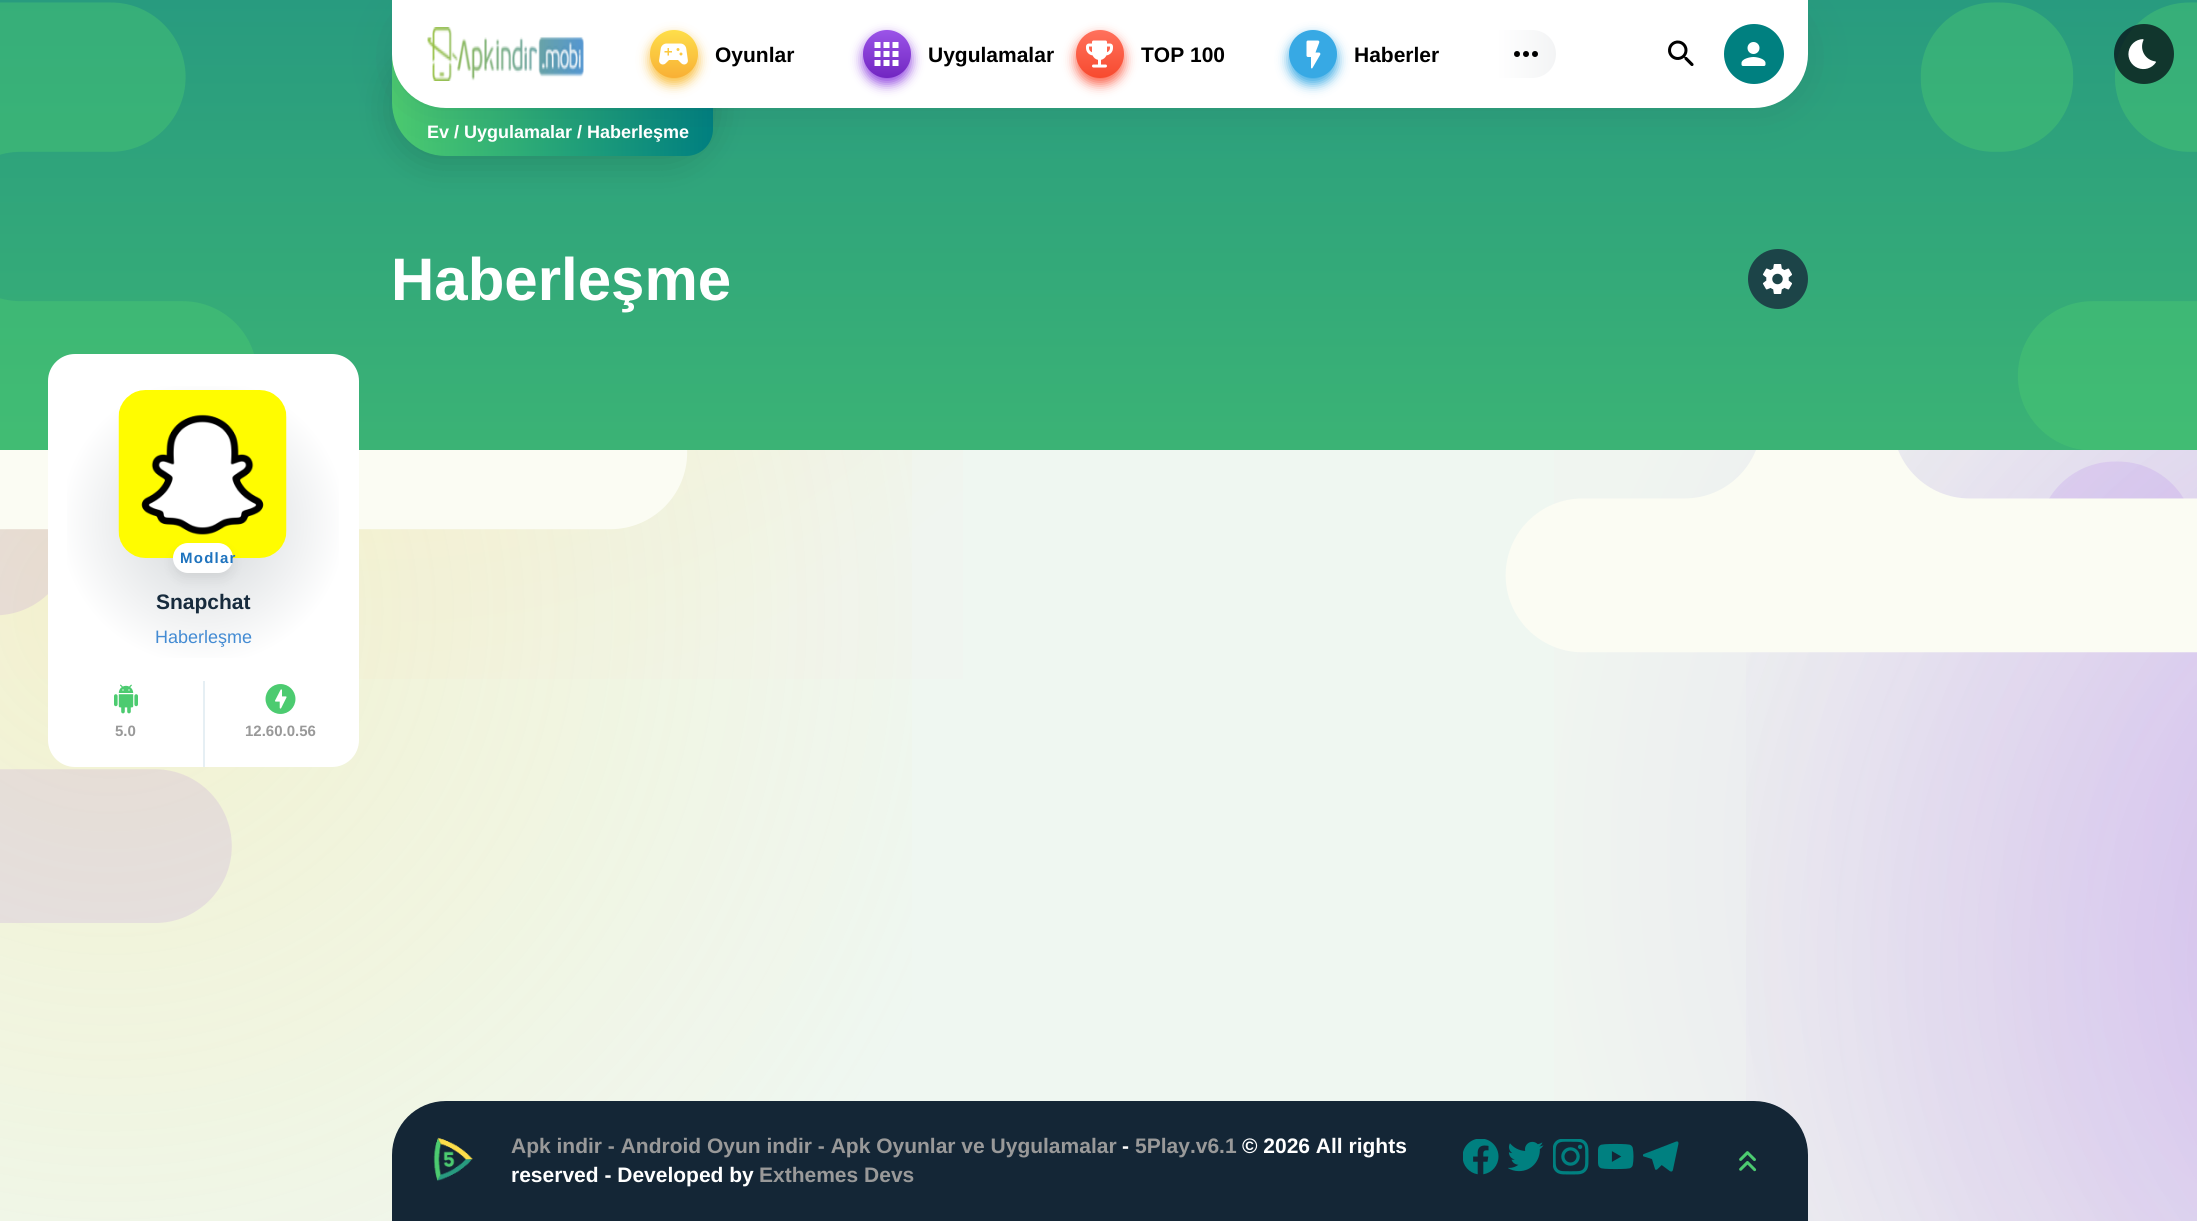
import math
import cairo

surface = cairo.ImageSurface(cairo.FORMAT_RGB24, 2197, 1221)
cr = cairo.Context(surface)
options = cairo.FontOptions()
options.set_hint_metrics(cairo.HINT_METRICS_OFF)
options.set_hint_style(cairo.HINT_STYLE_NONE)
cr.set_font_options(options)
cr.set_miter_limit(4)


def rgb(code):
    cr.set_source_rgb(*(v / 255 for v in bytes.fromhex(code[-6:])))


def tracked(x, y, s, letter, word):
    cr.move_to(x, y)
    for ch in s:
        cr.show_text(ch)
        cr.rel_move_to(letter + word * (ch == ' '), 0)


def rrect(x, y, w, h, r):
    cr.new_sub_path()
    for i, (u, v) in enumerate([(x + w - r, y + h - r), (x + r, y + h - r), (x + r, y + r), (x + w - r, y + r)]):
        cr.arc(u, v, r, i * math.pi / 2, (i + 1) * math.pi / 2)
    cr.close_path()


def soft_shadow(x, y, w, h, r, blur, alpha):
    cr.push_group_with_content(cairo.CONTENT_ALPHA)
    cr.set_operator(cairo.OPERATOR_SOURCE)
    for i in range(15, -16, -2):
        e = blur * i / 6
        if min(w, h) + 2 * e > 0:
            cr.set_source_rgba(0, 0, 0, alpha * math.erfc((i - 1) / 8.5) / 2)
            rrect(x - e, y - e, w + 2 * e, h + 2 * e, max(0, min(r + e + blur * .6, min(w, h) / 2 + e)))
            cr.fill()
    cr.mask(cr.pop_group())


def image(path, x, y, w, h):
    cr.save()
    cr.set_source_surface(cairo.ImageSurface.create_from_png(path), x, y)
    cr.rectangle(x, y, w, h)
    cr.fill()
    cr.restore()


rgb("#eff7f1")
cr.paint()
gradient = cairo.LinearGradient(1099, 450, 1099, 0)
gradient.add_color_stop_rgba(0, 0.231, 0.702, 0.459, 1)
gradient.add_color_stop_rgba(1, 0.157, 0.608, 0.498, 1)
cr.set_source(gradient)
cr.rectangle(0, 0, 2197, 450)
cr.fill()
image("img/9.png", 0, 2, 2197, 448)
rgb("#000000")
soft_shadow(392, 54, 321, 108, 54, 18, 0.15)
gradient = cairo.LinearGradient(392, 102, 713, 102)
gradient.add_color_stop_rgba(0, 0.298, 0.796, 0.439, 1)
gradient.add_color_stop_rgba(1, 0, 0.502, 0.502, 1)
cr.set_source(gradient)
cr.new_path()
cr.move_to(392, 48)
cr.line_to(713, 48)
cr.line_to(713, 129)
cr.curve_to(713, 144, 701, 156, 686, 156)
cr.line_to(446, 156)
cr.curve_to(416, 156, 392, 132, 392, 102)
cr.close_path()
cr.fill()
rgb("#172b3d")
soft_shadow(404, 15, 1392, 84, 42, 24, 0.2)
rgb("#ffffff")
cr.new_path()
cr.move_to(392, 0)
cr.line_to(1808, 0)
cr.line_to(1808, 54)
cr.curve_to(1808, 84, 1784, 108, 1754, 108)
cr.line_to(446, 108)
cr.curve_to(416, 108, 392, 84, 392, 54)
cr.close_path()
cr.fill()
image("img/1.png", 427, 27, 157, 54)
rgb("#f9bd3b")
soft_shadow(650, 36, 48, 48, 24, 6, 1)
gradient = cairo.LinearGradient(674, 30, 674, 78)
gradient.add_color_stop_rgba(0, 0.996, 0.871, 0.29, 1)
gradient.add_color_stop_rgba(1, 0.973, 0.69, 0.208, 1)
cr.set_source(gradient)
cr.arc(674, 54, 24, 0, 2 * math.pi)
cr.fill()
image("img/2.png", 659, 43, 29, 22)
rgb("#9248e1")
soft_shadow(863, 36, 48, 48, 24, 6, 1)
gradient = cairo.LinearGradient(887, 30, 887, 78)
gradient.add_color_stop_rgba(0, 0.608, 0.329, 0.91, 1)
gradient.add_color_stop_rgba(1, 0.443, 0.149, 0.757, 1)
cr.set_source(gradient)
cr.arc(887, 54, 24, 0, 2 * math.pi)
cr.fill()
image("img/3.png", 874, 42, 25, 24)
rgb("#fb614a")
soft_shadow(1076, 36, 48, 48, 24, 6, 1)
gradient = cairo.LinearGradient(1100, 30, 1100, 78)
gradient.add_color_stop_rgba(0, 1, 0.443, 0.361, 1)
gradient.add_color_stop_rgba(1, 0.969, 0.29, 0.184, 1)
cr.set_source(gradient)
cr.arc(1100, 54, 24, 0, 2 * math.pi)
cr.fill()
image("img/4.png", 1086, 40, 27, 28)
rgb("#37a9e4")
soft_shadow(1289, 36, 48, 48, 24, 6, 1)
rgb("#37a9e4")
cr.arc(1313, 54, 24, 0, 2 * math.pi)
cr.fill()
image("img/5.png", 1306, 40, 15, 29)
gradient = cairo.LinearGradient(1496, 54, 1556, 54)
gradient.add_color_stop_rgba(0, 1, 1, 1, 1)
gradient.add_color_stop_rgba(1, 0.953, 0.957, 0.961, 1)
cr.set_source(gradient)
cr.new_path()
cr.move_to(1496, 30)
cr.line_to(1532, 30)
cr.curve_to(1545.5, 30, 1556, 40.5, 1556, 54)
cr.curve_to(1556, 67.5, 1545.5, 78, 1532, 78)
cr.line_to(1496, 78)
cr.close_path()
cr.fill()
rgb("#000000")
cr.arc(1517, 54, 3, 0, 2 * math.pi)
cr.fill()
cr.arc(1526, 54, 3, 0, 2 * math.pi)
cr.fill()
cr.arc(1535, 54, 3, 0, 2 * math.pi)
cr.fill()
image("img/6.png", 1668, 40, 26, 26)
rgb("#008080")
cr.arc(1754, 54, 30, 0, 2 * math.pi)
cr.fill()
image("img/7.png", 1741, 42, 25, 24)
cr.set_source_rgba(0.02, 0.055, 0.082, 0.75)
cr.arc(2144, 54, 30, 0, 2 * math.pi)
cr.fill()
image("img/8.png", 2128, 39, 28, 31)
cr.set_source_rgba(0.09, 0.169, 0.239, 0.8)
cr.arc(1778, 279, 30, 0, 2 * math.pi)
cr.fill()
image("img/10.png", 1762, 264, 30, 30)
gradient = cairo.RadialGradient(380, -180, 0, 380, -180, 900)
gradient.add_color_stop_rgba(0, 0.953, 0.941, 0.812, 1)
gradient.add_color_stop_rgba(1, 0.941, 0.961, 0.941, 1)
cr.set_source(gradient)
cr.rectangle(0, 450, 963, 229)
cr.fill()
gradient = cairo.RadialGradient(110, 611, 0, 110, 611, 900)
gradient.add_color_stop_rgba(0, 0.996, 0.871, 0.29, 0.2)
gradient.add_color_stop_rgba(1, 0.996, 0.871, 0.29, 0)
cr.set_source(gradient)
cr.rectangle(0, 450, 912, 771)
cr.fill()
gradient = cairo.RadialGradient(2439, 855, 0, 2439, 855, 900)
gradient.add_color_stop_rgba(0, 0.875, 0.835, 0.933, 1)
gradient.add_color_stop_rgba(1, 0.941, 0.961, 0.941, 1)
cr.set_source(gradient)
cr.rectangle(1554, 450, 643, 771)
cr.fill()
gradient = cairo.RadialGradient(2549, 962, 0, 2549, 962, 900)
gradient.add_color_stop_rgba(0, 0.51, 0.141, 0.89, 0.2)
gradient.add_color_stop_rgba(1, 0.51, 0.141, 0.89, 0)
cr.set_source(gradient)
cr.rectangle(1746, 450, 451, 771)
cr.fill()
image("img/11.png", 0, 450, 2197, 473)
rgb("#ffffff")
rrect(48, 354, 311, 413, 27)
cr.fill()
gradient = cairo.RadialGradient(203, 522, 0, 203, 522, 144)
gradient.add_color_stop_rgba(0, 0.82, 0.835, 0.847, 1)
gradient.add_color_stop_rgba(1, 1, 1, 1, 1)
cr.set_source(gradient)
cr.rectangle(67, 386, 272, 272)
cr.fill()
image("img/12.png", 118, 390, 169, 168)
rgb("#000000")
soft_shadow(173, 549, 60, 30, 15, 6, 0.07)
rgb("#ffffff")
rrect(173, 543, 60, 30, 15)
cr.fill()
image("img/13.png", 114, 684, 24, 30)
rgb("#e6eff4")
cr.rectangle(203, 681, 2, 86)
cr.fill()
image("img/14.png", 265, 684, 31, 30)
rgb("#142636")
cr.new_path()
cr.move_to(446, 1101)
cr.line_to(1754, 1101)
cr.curve_to(1784, 1101, 1808, 1125, 1808, 1155)
cr.line_to(1808, 1221)
cr.line_to(392, 1221)
cr.line_to(392, 1155)
cr.curve_to(392, 1125, 416, 1101, 446, 1101)
cr.close_path()
cr.fill()
image("img/15.png", 433, 1137, 40, 44)
image("img/16.png", 1463, 1139, 36, 36)
image("img/17.png", 1508, 1141, 36, 31)
image("img/18.png", 1553, 1139, 36, 36)
image("img/19.png", 1598, 1143, 36, 27)
image("img/20.png", 1643, 1141, 36, 31)
image("img/21.png", 1739, 1151, 18, 21)
cr.select_font_face("Liberation Sans", cairo.FONT_SLANT_NORMAL, cairo.FONT_WEIGHT_BOLD)
cr.set_font_size(21)
rgb("#000000")
for x, y, s in [
    (715, 62, "Oyunlar"),
    (928, 62, "Uygulamalar"),
    (1141, 62, "TOP 100"),
    (1354, 62, "Haberler"),
]:
    cr.move_to(x, y)
    cr.show_text(s)
cr.set_font_size(18)
rgb("#ffffff")
cr.move_to(427, 138)
cr.show_text("Ev / Uygulamalar / Haberleşme")
cr.set_font_size(60)
cr.move_to(391, 300)
cr.show_text("Haberleşme")
cr.set_font_size(15)
rgb("#1e73be")
tracked(180, 563, "Modlar", 1.25, 0)
cr.set_font_size(21)
rgb("#172b3d")
cr.move_to(156, 609)
cr.show_text("Snapchat")
cr.select_font_face("Liberation Sans")
cr.set_font_size(18)
rgb("#438bd3")
cr.move_to(155, 643)
cr.show_text("Haberleşme")
cr.select_font_face("Liberation Sans", cairo.FONT_SLANT_NORMAL, cairo.FONT_WEIGHT_BOLD)
cr.set_font_size(15)
rgb("#999999")
cr.move_to(115, 736)
cr.show_text("5.0")
cr.move_to(245, 736)
cr.show_text("12.60.0.56")
cr.set_font_size(21)
cr.move_to(511, 1153)
cr.show_text("Apk indir - Android Oyun indir - Apk Oyunlar ve Uygulamalar")
rgb("#ffffff")
cr.move_to(1122, 1153)
cr.show_text("-")
rgb("#999999")
cr.move_to(1135, 1153)
cr.show_text("5Play.v6.1")
rgb("#ffffff")
cr.move_to(1242, 1153)
cr.show_text("© 2026 All rights")
cr.move_to(511, 1182)
cr.show_text("reserved - Developed by")
rgb("#999999")
cr.move_to(759, 1182)
cr.show_text("Exthemes Devs")
surface.write_to_png("page.png")
